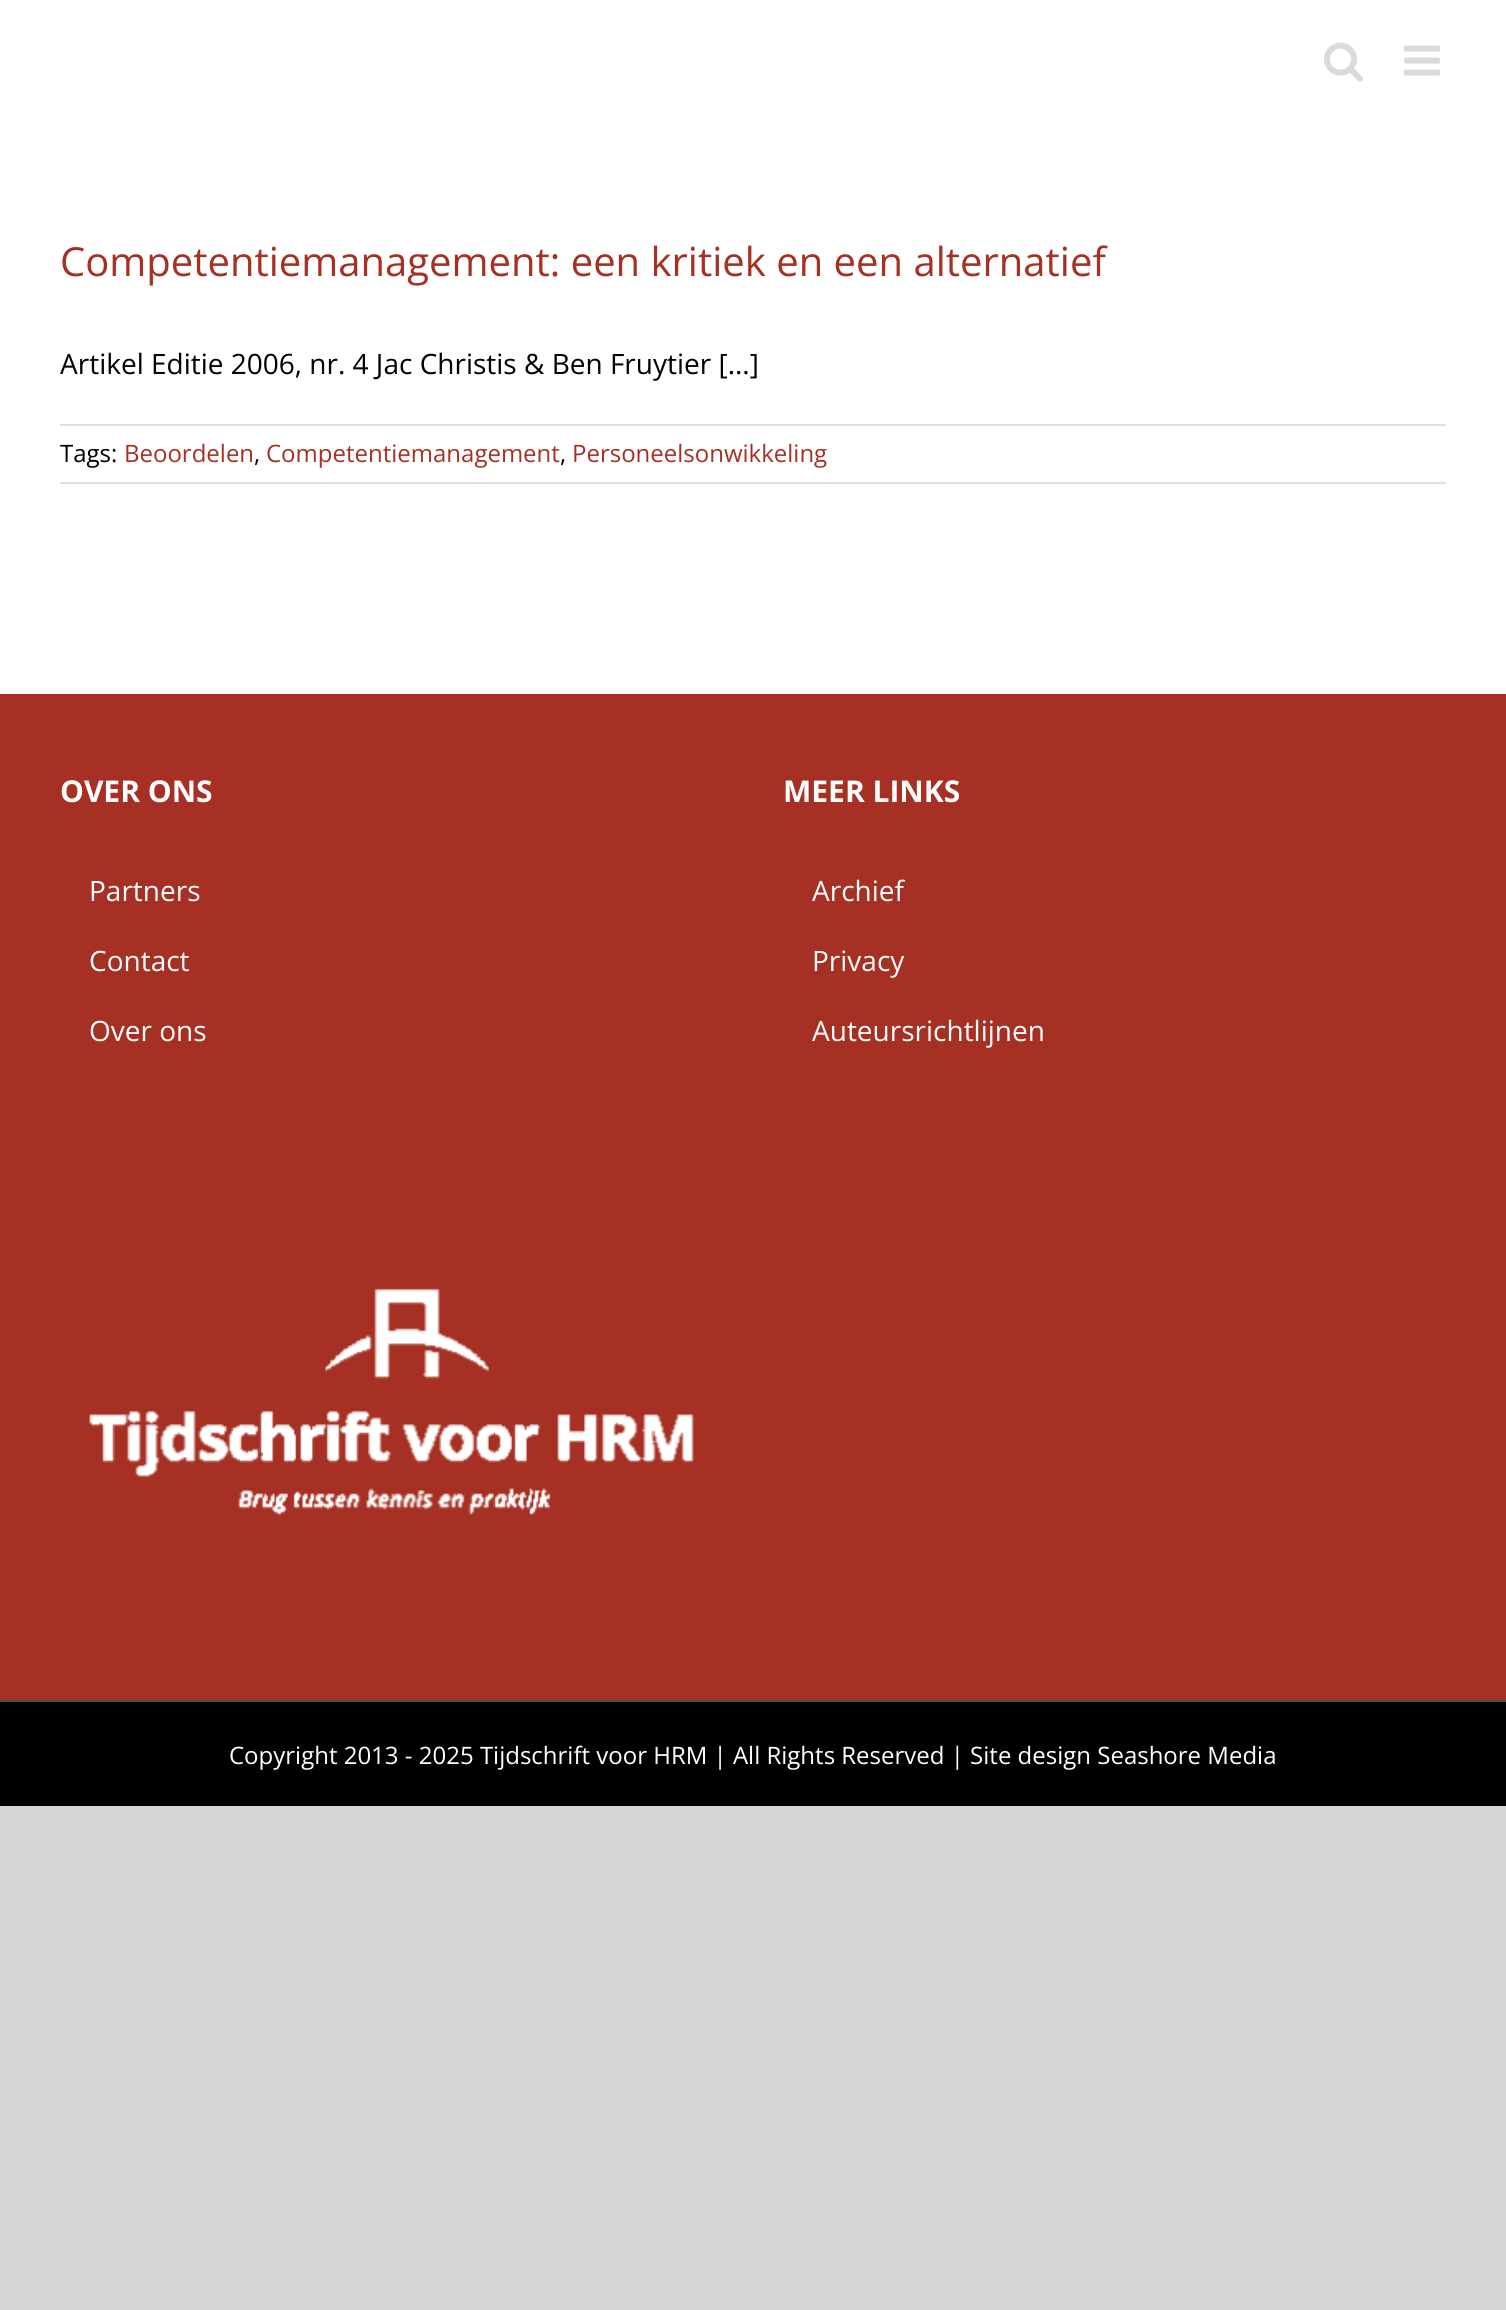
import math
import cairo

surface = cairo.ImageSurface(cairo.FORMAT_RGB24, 1506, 2310)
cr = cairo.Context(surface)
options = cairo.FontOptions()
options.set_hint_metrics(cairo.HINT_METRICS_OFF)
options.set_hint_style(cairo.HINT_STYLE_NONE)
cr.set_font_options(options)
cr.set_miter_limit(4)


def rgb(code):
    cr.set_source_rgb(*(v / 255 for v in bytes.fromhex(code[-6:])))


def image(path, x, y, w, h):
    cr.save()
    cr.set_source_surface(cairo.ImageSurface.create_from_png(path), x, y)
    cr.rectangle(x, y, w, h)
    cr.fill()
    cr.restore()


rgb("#d7d6d6")
cr.paint()
rgb("#ffffff")
cr.rectangle(0, 0, 1506, 694)
cr.fill()
image("img/1.png", 1324, 42, 39, 40)
image("img/2.png", 1404, 45, 36, 31)
for x, y, w, h, color in [
    (60, 424, 1386, 2, "#e0dede"),
    (60, 482, 1386, 2, "#e0dede"),
    (0, 694, 1506, 1006, "#a63023"),
]:
    rgb(color)
    cr.rectangle(x, y, w, h)
    cr.fill()
image("img/3.png", 89, 1288, 605, 228)
rgb("#000000")
cr.rectangle(0, 1702, 1506, 104)
cr.fill()
rgb("#4b4c4d")
cr.rectangle(0, 1700, 1506, 2)
cr.fill()
cr.select_font_face("Open Sans")
cr.set_font_size(40)
rgb("#a63023")
cr.move_to(60, 276)
cr.show_text("Competentiemanagement: een kritiek en een alternatief")
cr.set_font_size(28)
rgb("#000000")
cr.move_to(60, 374)
cr.show_text("Artikel Editie 2006, nr. 4 Jac Christis & Ben Fruytier [...]")
cr.set_font_size(24)
cr.move_to(60, 462)
cr.show_text("Tags:")
rgb("#a63023")
cr.move_to(124, 462)
cr.show_text("Beoordelen")
rgb("#000000")
cr.move_to(254, 462)
cr.show_text(",")
rgb("#a63023")
cr.move_to(266, 462)
cr.show_text("Competentiemanagement")
rgb("#000000")
cr.move_to(560, 462)
cr.show_text(",")
rgb("#a63023")
cr.move_to(572, 462)
cr.show_text("Personeelsonwikkeling")
cr.select_font_face("Open Sans", cairo.FONT_SLANT_NORMAL, cairo.FONT_WEIGHT_BOLD)
cr.set_font_size(30)
rgb("#ffffff")
cr.move_to(60, 802)
cr.show_text("OVER ONS")
cr.select_font_face("Open Sans")
cr.set_font_size(28)
for x, y, s in [
    (89, 901, "Partners"),
    (89, 971, "Contact"),
    (89, 1041, "Over ons"),
]:
    cr.move_to(x, y)
    cr.show_text(s)
cr.select_font_face("Open Sans", cairo.FONT_SLANT_NORMAL, cairo.FONT_WEIGHT_BOLD)
cr.set_font_size(30)
cr.move_to(783, 802)
cr.show_text("MEER LINKS")
cr.select_font_face("Open Sans")
cr.set_font_size(28)
for x, y, s in [
    (812, 901, "Archief"),
    (812, 971, "Privacy"),
    (812, 1041, "Auteursrichtlijnen"),
]:
    cr.move_to(x, y)
    cr.show_text(s)
cr.set_font_size(24)
cr.move_to(229, 1764)
cr.show_text("Copyright 2013 - 2025 Tijdschrift voor HRM | All Rights Reserved | Site design Seashore Media")
surface.write_to_png("page.png")
